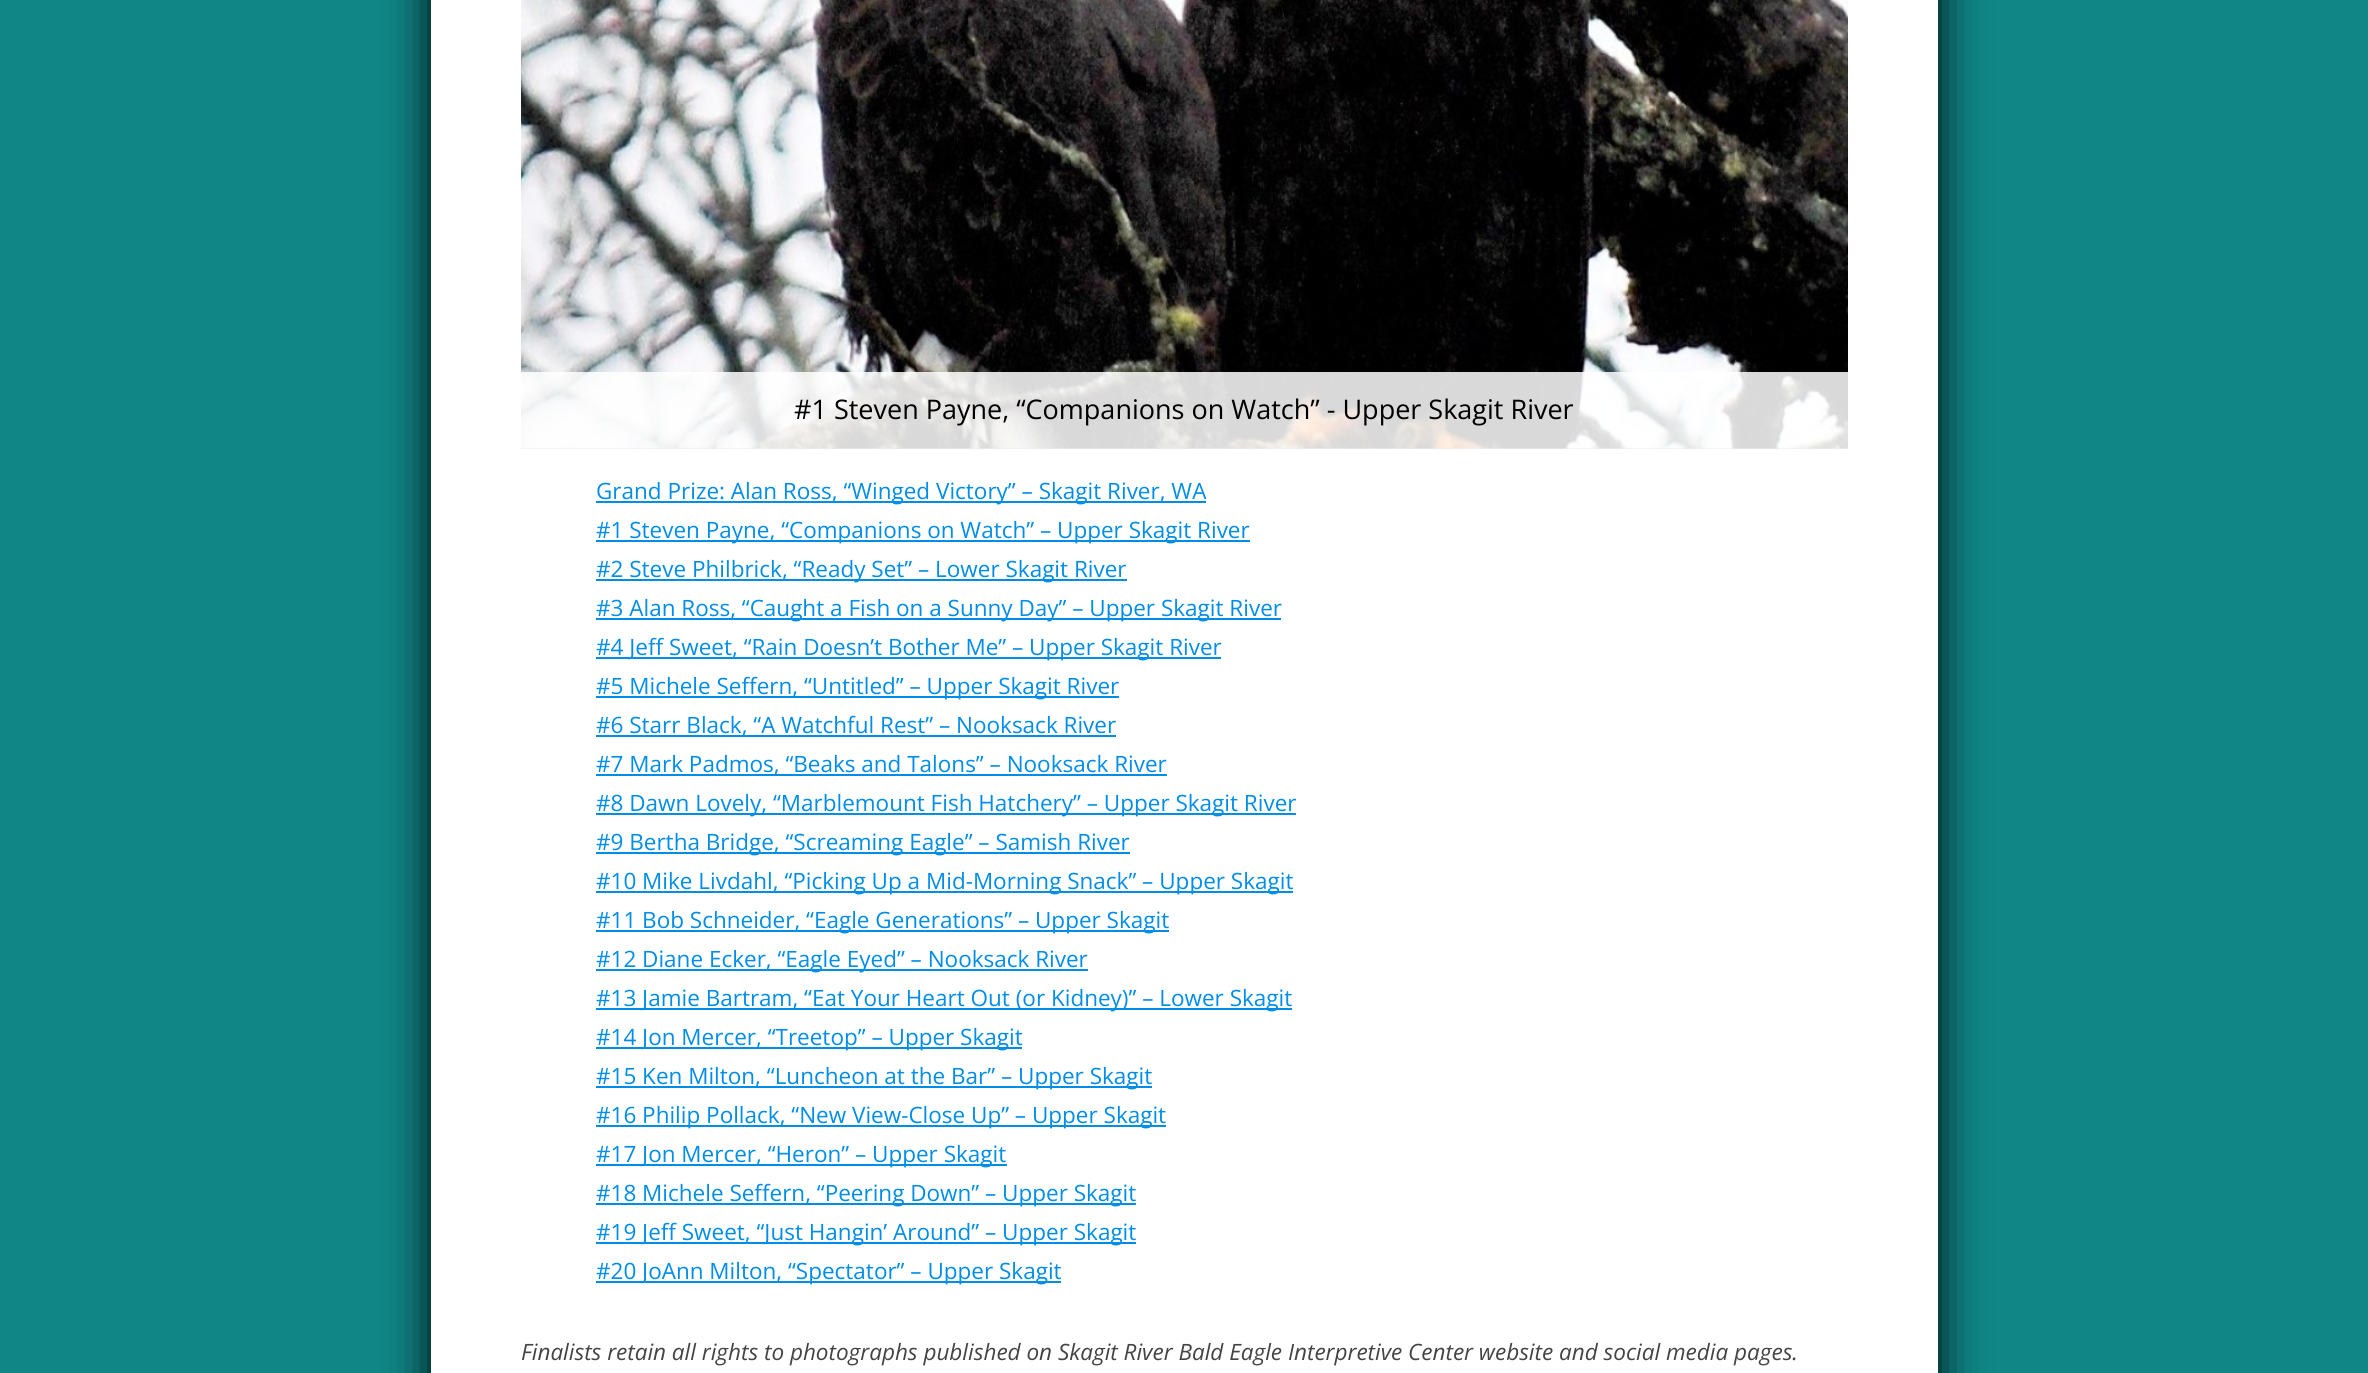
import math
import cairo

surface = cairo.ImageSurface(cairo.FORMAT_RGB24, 2368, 1373)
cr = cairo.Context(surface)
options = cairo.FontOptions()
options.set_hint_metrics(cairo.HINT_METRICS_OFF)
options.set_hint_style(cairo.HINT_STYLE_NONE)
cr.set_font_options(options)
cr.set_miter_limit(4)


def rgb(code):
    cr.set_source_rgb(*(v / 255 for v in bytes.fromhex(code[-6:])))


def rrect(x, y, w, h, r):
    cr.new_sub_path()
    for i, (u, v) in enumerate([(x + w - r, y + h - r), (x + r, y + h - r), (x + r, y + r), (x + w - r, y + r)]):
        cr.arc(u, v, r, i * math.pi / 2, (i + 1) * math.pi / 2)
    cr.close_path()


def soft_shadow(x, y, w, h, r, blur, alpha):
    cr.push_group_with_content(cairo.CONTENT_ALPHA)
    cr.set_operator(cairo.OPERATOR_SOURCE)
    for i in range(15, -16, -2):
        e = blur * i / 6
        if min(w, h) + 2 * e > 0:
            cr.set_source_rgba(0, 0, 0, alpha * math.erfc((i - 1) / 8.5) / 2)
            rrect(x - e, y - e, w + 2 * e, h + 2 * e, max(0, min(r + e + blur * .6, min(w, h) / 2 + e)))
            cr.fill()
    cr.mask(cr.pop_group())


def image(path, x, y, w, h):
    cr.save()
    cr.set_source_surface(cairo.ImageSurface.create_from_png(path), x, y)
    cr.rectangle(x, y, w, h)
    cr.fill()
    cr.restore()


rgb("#108686")
cr.paint()
rgb("#000000")
soft_shadow(431, -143, 1507, 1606, 75, 22.5, 1)
rgb("#ffffff")
cr.rectangle(431, 0, 1507, 1373)
cr.fill()
cr.save()
cr.rectangle(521, 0, 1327, 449)
cr.clip()
rgb("#000000")
soft_shadow(521, -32, 1327, 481, 0, 10.5, 1)
cr.restore()
image("img/1.png", 521, 0, 1327, 449)
cr.set_source_rgba(1, 1, 1, 0.85)
cr.rectangle(521, 372, 1327, 77)
cr.fill()
rgb("#008de8")
cr.rectangle(596, 501, 610, 2)
cr.rectangle(596, 540, 654, 2)
cr.rectangle(596, 579, 531, 2)
cr.rectangle(596, 618, 685, 2)
cr.rectangle(596, 657, 625, 2)
cr.rectangle(596, 696, 523, 2)
cr.rectangle(596, 735, 520, 2)
cr.rectangle(596, 774, 571, 2)
cr.rectangle(596, 813, 700, 2)
cr.rectangle(596, 852, 534, 2)
cr.rectangle(596, 891, 697, 2)
cr.rectangle(596, 930, 573, 2)
cr.rectangle(596, 969, 492, 2)
cr.rectangle(596, 1008, 696, 2)
cr.rectangle(596, 1047, 426, 2)
cr.rectangle(596, 1086, 556, 2)
cr.rectangle(596, 1125, 570, 2)
cr.rectangle(596, 1164, 411, 2)
cr.rectangle(596, 1203, 540, 2)
cr.rectangle(596, 1242, 540, 2)
cr.rectangle(596, 1281, 465, 2)
cr.fill()
cr.select_font_face("Open Sans")
cr.set_font_size(27)
rgb("#000000")
cr.move_to(794, 419)
cr.show_text("#1 Steven Payne, “Companions on Watch” - Upper Skagit River")
cr.set_font_size(22.5)
rgb("#008de8")
for x, y, s in [
    (596, 499, "Grand Prize: Alan Ross, “Winged Victory” – Skagit River, WA"),
    (596, 538, "#1 Steven Payne, “Companions on Watch” – Upper Skagit River"),
    (596, 577, "#2 Steve Philbrick, “Ready Set” – Lower Skagit River"),
    (596, 616, "#3 Alan Ross, “Caught a Fish on a Sunny Day” – Upper Skagit River"),
    (596, 655, "#4 Jeff Sweet, “Rain Doesn’t Bother Me” – Upper Skagit River"),
    (596, 694, "#5 Michele Seffern, “Untitled” – Upper Skagit River"),
    (596, 733, "#6 Starr Black, “A Watchful Rest” – Nooksack River"),
    (596, 772, "#7 Mark Padmos, “Beaks and Talons” – Nooksack River"),
    (596, 811, "#8 Dawn Lovely, “Marblemount Fish Hatchery” – Upper Skagit River"),
    (596, 850, "#9 Bertha Bridge, “Screaming Eagle” – Samish River"),
    (596, 889, "#10 Mike Livdahl, “Picking Up a Mid-Morning Snack” – Upper Skagit"),
    (596, 928, "#11 Bob Schneider, “Eagle Generations” – Upper Skagit"),
    (596, 967, "#12 Diane Ecker, “Eagle Eyed” – Nooksack River"),
    (596, 1006, "#13 Jamie Bartram, “Eat Your Heart Out (or Kidney)” – Lower Skagit"),
    (596, 1045, "#14 Jon Mercer, “Treetop” – Upper Skagit"),
    (596, 1084, "#15 Ken Milton, “Luncheon at the Bar” – Upper Skagit"),
    (596, 1123, "#16 Philip Pollack, “New View-Close Up” – Upper Skagit"),
    (596, 1162, "#17 Jon Mercer, “Heron” – Upper Skagit"),
    (596, 1201, "#18 Michele Seffern, “Peering Down” – Upper Skagit"),
    (596, 1240, "#19 Jeff Sweet, “Just Hangin’ Around” – Upper Skagit"),
    (596, 1279, "#20 JoAnn Milton, “Spectator” – Upper Skagit"),
]:
    cr.move_to(x, y)
    cr.show_text(s)
cr.select_font_face("Open Sans", cairo.FONT_SLANT_ITALIC)
rgb("#444444")
cr.move_to(521, 1360)
cr.show_text("Finalists retain all rights to photographs published on Skagit River Bald Eagle Interpretive Center website and social media pages.")
surface.write_to_png("page.png")
